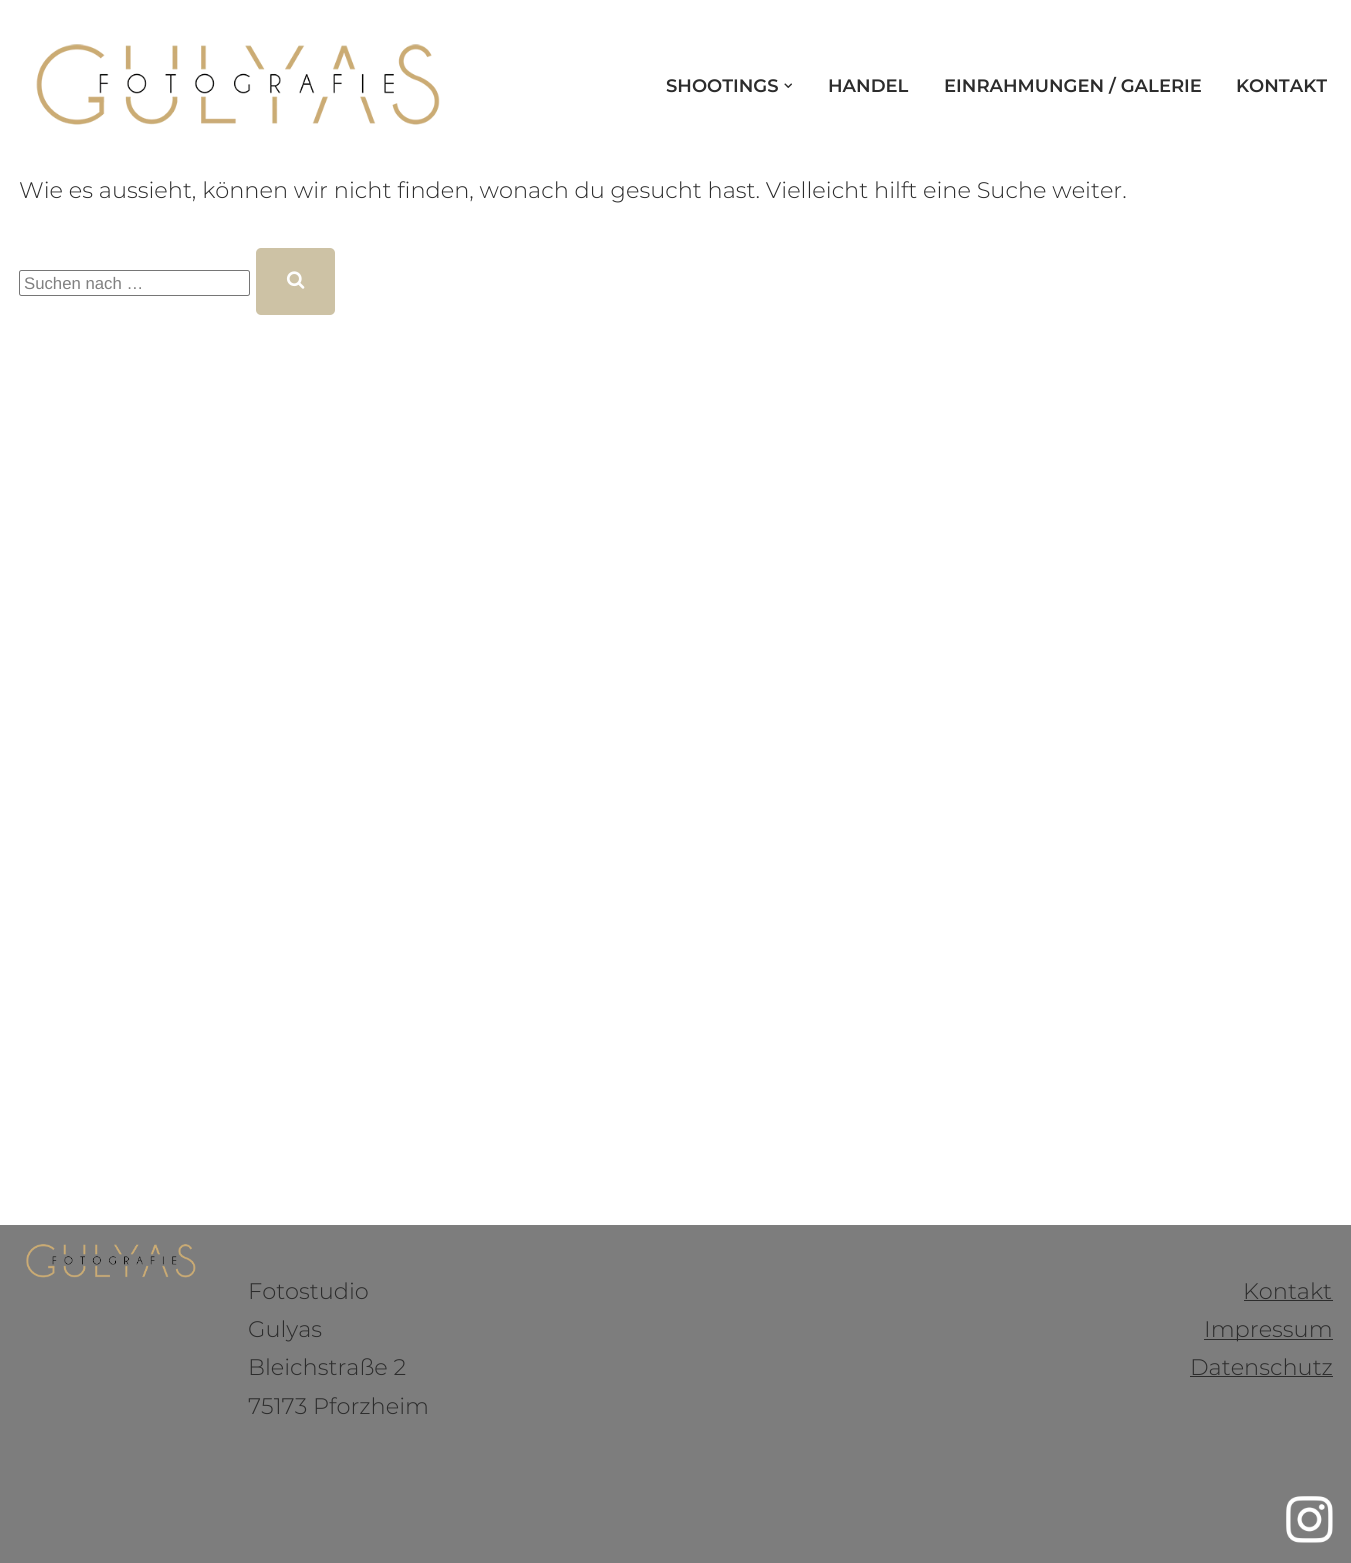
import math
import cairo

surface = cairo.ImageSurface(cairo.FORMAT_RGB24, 1351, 1563)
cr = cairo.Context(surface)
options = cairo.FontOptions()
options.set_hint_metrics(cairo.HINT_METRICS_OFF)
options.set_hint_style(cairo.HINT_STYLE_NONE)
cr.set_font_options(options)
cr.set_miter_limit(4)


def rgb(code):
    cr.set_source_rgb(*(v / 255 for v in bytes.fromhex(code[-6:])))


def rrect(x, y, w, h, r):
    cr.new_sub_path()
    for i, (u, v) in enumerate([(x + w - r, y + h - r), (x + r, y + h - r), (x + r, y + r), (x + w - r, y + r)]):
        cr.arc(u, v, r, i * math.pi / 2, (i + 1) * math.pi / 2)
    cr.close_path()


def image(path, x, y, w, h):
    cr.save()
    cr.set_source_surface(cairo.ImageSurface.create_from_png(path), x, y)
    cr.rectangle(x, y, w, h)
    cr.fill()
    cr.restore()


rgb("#ffffff")
cr.paint()
image("img/1.png", 36, 44, 404, 81)
image("img/2.png", 784, 83, 8, 5)
rrect(19.5, 270.5, 230, 25, 2)
rgb("#767676")
cr.set_line_width(1)
cr.stroke()
rgb("#cdc2a5")
rrect(256, 248, 79, 67, 5)
cr.fill()
image("img/3.png", 286, 271, 19, 18)
rgb("#7d7d7d")
cr.rectangle(0, 1225, 1351, 338)
cr.fill()
image("img/4.png", 26, 1244, 170, 34)
for x, y, w, h, color in [
    (1244, 1300, 89, 1, "#2c2c2c"),
    (1204, 1339, 129, 1, "#2c2c2c"),
    (1190, 1376, 143, 1, "#2c2c2c"),
]:
    rgb(color)
    cr.rectangle(x, y, w, h)
    cr.fill()
image("img/5.png", 1286, 1496, 47, 47)
cr.select_font_face("Montserrat SemiBold")
cr.set_font_size(18)
for x, y, s in [
    (666, 92, "SHOOTINGS"),
    (828, 92, "HANDEL"),
    (944, 92, "EINRAHMUNGEN / GALERIE"),
    (1236, 92, "KONTAKT"),
]:
    cr.move_to(x, y)
    cr.show_text(s)
cr.select_font_face("Montserrat Light")
cr.set_font_size(22.5)
cr.move_to(19, 198)
cr.show_text("Wie es aussieht, können wir nicht finden, wonach du gesucht hast. Vielleicht hilft eine Suche weiter.")
cr.select_font_face("Liberation Sans")
cr.set_font_size(16.75)
rgb("#808080")
cr.move_to(24, 289)
cr.show_text("Suchen nach …")
cr.select_font_face("Montserrat Light")
cr.set_font_size(22.5)
rgb("#2c2c2c")
for x, y, s in [
    (248, 1299, "Fotostudio"),
    (248, 1337, "Gulyas"),
    (248, 1375, "Bleichstraße 2"),
    (248, 1414, "75173 Pforzheim"),
    (1243, 1299, "Kontakt"),
    (1204, 1337, "Impressum"),
    (1190, 1375, "Datenschutz"),
]:
    cr.move_to(x, y)
    cr.show_text(s)
surface.write_to_png("page.png")
